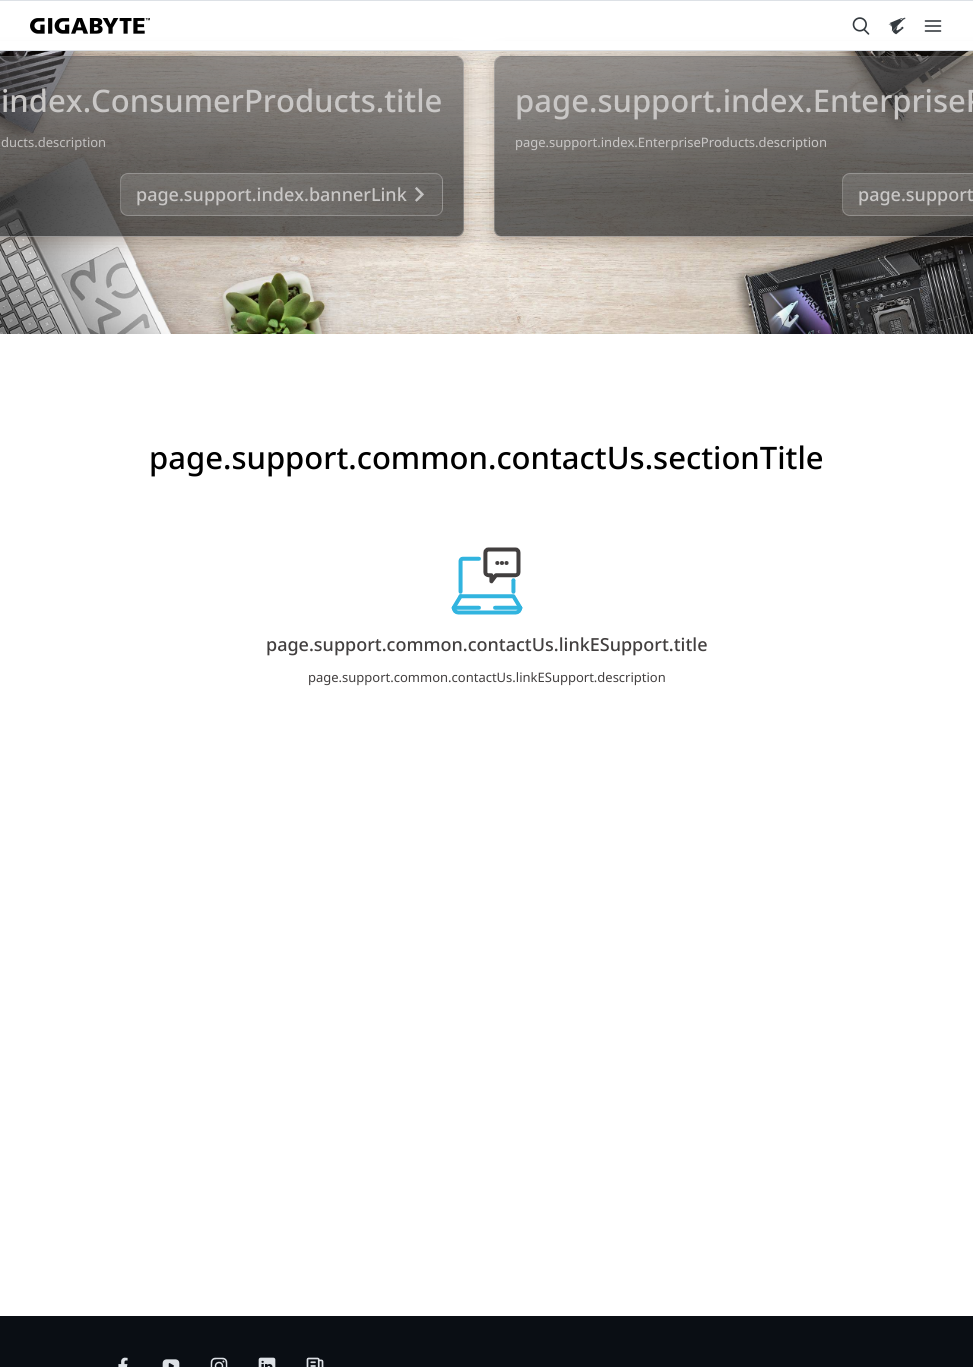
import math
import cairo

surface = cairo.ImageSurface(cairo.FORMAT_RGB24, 973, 1367)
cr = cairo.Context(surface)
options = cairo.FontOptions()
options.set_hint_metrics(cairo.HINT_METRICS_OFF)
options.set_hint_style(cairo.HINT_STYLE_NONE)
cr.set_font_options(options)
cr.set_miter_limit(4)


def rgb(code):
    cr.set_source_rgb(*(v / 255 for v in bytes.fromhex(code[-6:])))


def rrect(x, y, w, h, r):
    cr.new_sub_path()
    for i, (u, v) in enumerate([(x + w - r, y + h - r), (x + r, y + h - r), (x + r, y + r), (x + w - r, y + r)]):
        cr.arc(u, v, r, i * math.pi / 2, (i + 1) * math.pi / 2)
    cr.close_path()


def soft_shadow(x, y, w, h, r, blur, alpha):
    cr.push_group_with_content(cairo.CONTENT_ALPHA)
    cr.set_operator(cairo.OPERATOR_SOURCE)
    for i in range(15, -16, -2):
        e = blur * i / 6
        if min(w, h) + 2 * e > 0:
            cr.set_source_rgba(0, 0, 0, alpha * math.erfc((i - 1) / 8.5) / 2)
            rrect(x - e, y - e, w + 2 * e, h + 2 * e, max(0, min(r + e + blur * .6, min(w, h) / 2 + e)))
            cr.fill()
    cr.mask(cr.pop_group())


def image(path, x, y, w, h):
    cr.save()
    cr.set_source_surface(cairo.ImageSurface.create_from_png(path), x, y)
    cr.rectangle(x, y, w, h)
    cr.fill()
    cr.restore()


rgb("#ffffff")
cr.paint()
image("img/5.png", 0, 51, 973, 283)
cr.save()
cr.set_fill_rule(cairo.FILL_RULE_EVEN_ODD)
cr.new_path()
cr.move_to(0, 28)
cr.line_to(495, 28)
cr.line_to(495, 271)
cr.line_to(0, 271)
cr.close_path()
cr.move_to(-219, 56)
cr.line_to(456, 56)
cr.curve_to(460.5, 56, 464, 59.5, 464, 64)
cr.line_to(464, 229)
cr.curve_to(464, 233.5, 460.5, 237, 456, 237)
cr.line_to(-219, 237)
cr.curve_to(-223.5, 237, -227, 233.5, -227, 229)
cr.line_to(-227, 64)
cr.curve_to(-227, 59.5, -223.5, 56, -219, 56)
cr.close_path()
cr.clip()
rgb("#3a1800")
soft_shadow(-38, 59, 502, 181, 8, 10, 0.3)
cr.restore()
cr.set_source_rgba(1, 1, 1, 0.09)
rrect(-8, 56, 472, 181, 8)
cr.fill()
cr.save()
rrect(-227, 56, 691, 181, 8)
cr.clip()
gradient = cairo.LinearGradient(806, 51, 809, 242)
gradient.add_color_stop_rgba(0.02, 0.259, 0.247, 0.247, 0.54)
gradient.add_color_stop_rgba(0.71, 0, 0, 0, 0.6)
cr.set_source(gradient)
cr.rectangle(463, 57, 1, 179)
cr.fill()
gradient = cairo.LinearGradient(117, -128, 120, 63)
gradient.add_color_stop_rgba(0.02, 0.259, 0.247, 0.247, 0.54)
gradient.add_color_stop_rgba(0.71, 0, 0, 0, 0.6)
cr.set_source(gradient)
cr.rectangle(0, 56, 463, 1)
cr.fill()
gradient = cairo.LinearGradient(117, 51, 120, 242)
gradient.add_color_stop_rgba(0.02, 0.259, 0.247, 0.247, 0.54)
gradient.add_color_stop_rgba(0.71, 0, 0, 0, 0.6)
cr.set_source(gradient)
cr.rectangle(0, 57, 463, 179)
cr.fill()
gradient = cairo.LinearGradient(117, 230, 120, 421)
gradient.add_color_stop_rgba(0.02, 0.259, 0.247, 0.247, 0.54)
gradient.add_color_stop_rgba(0.71, 0, 0, 0, 0.6)
cr.set_source(gradient)
cr.rectangle(0, 236, 463, 1)
cr.fill()
cr.restore()
rrect(-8.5, 56.5, 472, 180, 7.5)
cr.set_source_rgba(1, 1, 1, 0.24)
cr.set_line_width(1)
cr.stroke()
cr.save()
cr.set_fill_rule(cairo.FILL_RULE_EVEN_ODD)
cr.new_path()
cr.move_to(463, 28)
cr.line_to(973, 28)
cr.line_to(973, 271)
cr.line_to(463, 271)
cr.close_path()
cr.move_to(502, 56)
cr.line_to(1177, 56)
cr.curve_to(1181.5, 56, 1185, 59.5, 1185, 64)
cr.line_to(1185, 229)
cr.curve_to(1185, 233.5, 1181.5, 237, 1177, 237)
cr.line_to(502, 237)
cr.curve_to(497.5, 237, 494, 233.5, 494, 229)
cr.line_to(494, 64)
cr.curve_to(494, 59.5, 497.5, 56, 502, 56)
cr.close_path()
cr.clip()
rgb("#3a1800")
soft_shadow(494, 59, 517, 181, 8, 10, 0.3)
cr.restore()
for x, y, w, h, color in [
    (0, 41, 973, 9, "#ffffff"),
    (0, 0, 973, 1, "#dde1e6"),
    (0, 50, 973, 1, "#dde1e6"),
]:
    rgb(color)
    cr.rectangle(x, y, w, h)
    cr.fill()
image("img/1.png", 30, 18, 120, 16)
image("img/2.png", 852, 17, 18, 18)
image("img/3.png", 888, 17, 18, 18)
image("img/4.png", 924, 20, 18, 12)
cr.save()
rrect(120, 173, 323, 43, 8)
cr.clip()
gradient = cairo.LinearGradient(124, 120, 505, 201)
gradient.add_color_stop_rgba(0.35, 1, 1, 1, 0.13)
gradient.add_color_stop_rgba(1, 1, 1, 1, 0)
cr.set_source(gradient)
cr.rectangle(121, 173, 321, 1)
cr.fill()
cr.restore()
gradient = cairo.LinearGradient(-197, 161, 184, 242)
gradient.add_color_stop_rgba(0.35, 1, 1, 1, 0.13)
gradient.add_color_stop_rgba(1, 1, 1, 1, 0)
cr.set_source(gradient)
cr.rectangle(120, 174, 1, 41)
cr.fill()
cr.save()
rrect(120, 173, 323, 43, 8)
cr.clip()
gradient = cairo.LinearGradient(124, 161, 505, 242)
gradient.add_color_stop_rgba(0.35, 1, 1, 1, 0.13)
gradient.add_color_stop_rgba(1, 1, 1, 1, 0)
cr.set_source(gradient)
cr.rectangle(121, 174, 321, 41)
cr.fill()
gradient = cairo.LinearGradient(445, 161, 826, 242)
gradient.add_color_stop_rgba(0.35, 1, 1, 1, 0.13)
gradient.add_color_stop_rgba(1, 1, 1, 1, 0)
cr.set_source(gradient)
cr.rectangle(442, 174, 1, 41)
cr.fill()
gradient = cairo.LinearGradient(124, 202, 505, 283)
gradient.add_color_stop_rgba(0.35, 1, 1, 1, 0.13)
gradient.add_color_stop_rgba(1, 1, 1, 1, 0)
cr.set_source(gradient)
cr.rectangle(121, 215, 321, 1)
cr.fill()
cr.restore()
rrect(120.5, 173.5, 322, 42, 7.5)
cr.set_source_rgba(1, 1, 1, 0.24)
cr.stroke()
image("img/7.png", 415, 187, 9, 15)
cr.set_source_rgba(1, 1, 1, 0.09)
rrect(494, 56, 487, 181, 8)
cr.fill()
cr.save()
rrect(494, 56, 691, 181, 8)
cr.clip()
gradient = cairo.LinearGradient(838, -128, 841, 63)
gradient.add_color_stop_rgba(0.02, 0.259, 0.247, 0.247, 0.54)
gradient.add_color_stop_rgba(0.71, 0, 0, 0, 0.6)
cr.set_source(gradient)
cr.rectangle(495, 56, 478, 1)
cr.fill()
gradient = cairo.LinearGradient(149, 51, 152, 242)
gradient.add_color_stop_rgba(0.02, 0.259, 0.247, 0.247, 0.54)
gradient.add_color_stop_rgba(0.71, 0, 0, 0, 0.6)
cr.set_source(gradient)
cr.rectangle(494, 57, 1, 179)
cr.fill()
gradient = cairo.LinearGradient(838, 51, 841, 242)
gradient.add_color_stop_rgba(0.02, 0.259, 0.247, 0.247, 0.54)
gradient.add_color_stop_rgba(0.71, 0, 0, 0, 0.6)
cr.set_source(gradient)
cr.rectangle(495, 57, 478, 179)
cr.fill()
gradient = cairo.LinearGradient(838, 230, 841, 421)
gradient.add_color_stop_rgba(0.02, 0.259, 0.247, 0.247, 0.54)
gradient.add_color_stop_rgba(0.71, 0, 0, 0, 0.6)
cr.set_source(gradient)
cr.rectangle(495, 236, 478, 1)
cr.fill()
cr.restore()
rrect(494.5, 56.5, 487, 180, 7.5)
cr.set_source_rgba(1, 1, 1, 0.24)
cr.stroke()
cr.save()
rrect(842, 173, 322, 43, 8)
cr.clip()
gradient = cairo.LinearGradient(846, 120, 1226, 201)
gradient.add_color_stop_rgba(0.35, 1, 1, 1, 0.13)
gradient.add_color_stop_rgba(1, 1, 1, 1, 0)
cr.set_source(gradient)
cr.rectangle(843, 173, 130, 1)
cr.fill()
cr.restore()
gradient = cairo.LinearGradient(526, 161, 906, 242)
gradient.add_color_stop_rgba(0.35, 1, 1, 1, 0.13)
gradient.add_color_stop_rgba(1, 1, 1, 1, 0)
cr.set_source(gradient)
cr.rectangle(842, 174, 1, 41)
cr.fill()
cr.save()
rrect(842, 173, 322, 43, 8)
cr.clip()
gradient = cairo.LinearGradient(846, 161, 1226, 242)
gradient.add_color_stop_rgba(0.35, 1, 1, 1, 0.13)
gradient.add_color_stop_rgba(1, 1, 1, 1, 0)
cr.set_source(gradient)
cr.rectangle(843, 174, 130, 41)
cr.fill()
gradient = cairo.LinearGradient(846, 202, 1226, 283)
gradient.add_color_stop_rgba(0.35, 1, 1, 1, 0.13)
gradient.add_color_stop_rgba(1, 1, 1, 1, 0)
cr.set_source(gradient)
cr.rectangle(843, 215, 130, 1)
cr.fill()
cr.restore()
rrect(842.5, 173.5, 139, 42, 7.5)
cr.set_source_rgba(1, 1, 1, 0.24)
cr.stroke()
image("img/9.png", 451, 547, 72, 68)
rgb("#0a0e14")
cr.rectangle(0, 1316, 973, 51)
cr.fill()
image("img/10.png", 118, 1357, 10, 10)
image("img/11.png", 162, 1359, 18, 8)
image("img/12.png", 210, 1357, 18, 10)
image("img/13.png", 258, 1357, 18, 10)
image("img/14.png", 306, 1357, 18, 10)
cr.select_font_face("Noto Sans Medium")
cr.set_font_size(31)
rgb("#c7c5c4")
cr.move_to(1, 112)
cr.show_text("index.ConsumerProducts.title")
cr.select_font_face("Noto Sans")
cr.set_font_size(13)
rgb("#c0bebd")
cr.move_to(1, 147)
cr.show_text("ducts.description")
cr.select_font_face("Noto Sans Medium")
cr.set_font_size(18)
rgb("#c7c5c4")
cr.move_to(136, 201)
cr.show_text("page.support.index.bannerLink")
image("img/6.png", 0, 57, 463, 179)
cr.set_font_size(31)
cr.move_to(515, 112)
cr.show_text("page.support.index.EnterpriseP")
cr.select_font_face("Noto Sans")
cr.set_font_size(13)
cr.move_to(515, 147)
cr.show_text("page.support.index.EnterpriseProducts.description")
cr.select_font_face("Noto Sans Medium")
cr.set_font_size(18)
cr.move_to(858, 201)
cr.show_text("page.support")
image("img/8.png", 495, 57, 478, 179)
cr.set_font_size(31)
rgb("#000000")
cr.move_to(149, 469)
cr.show_text("page.support.common.contactUs.sectionTitle")
cr.set_font_size(18)
rgb("#423f3f")
cr.move_to(266, 651)
cr.show_text("page.support.common.contactUs.linkESupport.title")
cr.select_font_face("Noto Sans")
cr.set_font_size(13)
cr.move_to(308, 682)
cr.show_text("page.support.common.contactUs.linkESupport.description")
surface.write_to_png("page.png")
